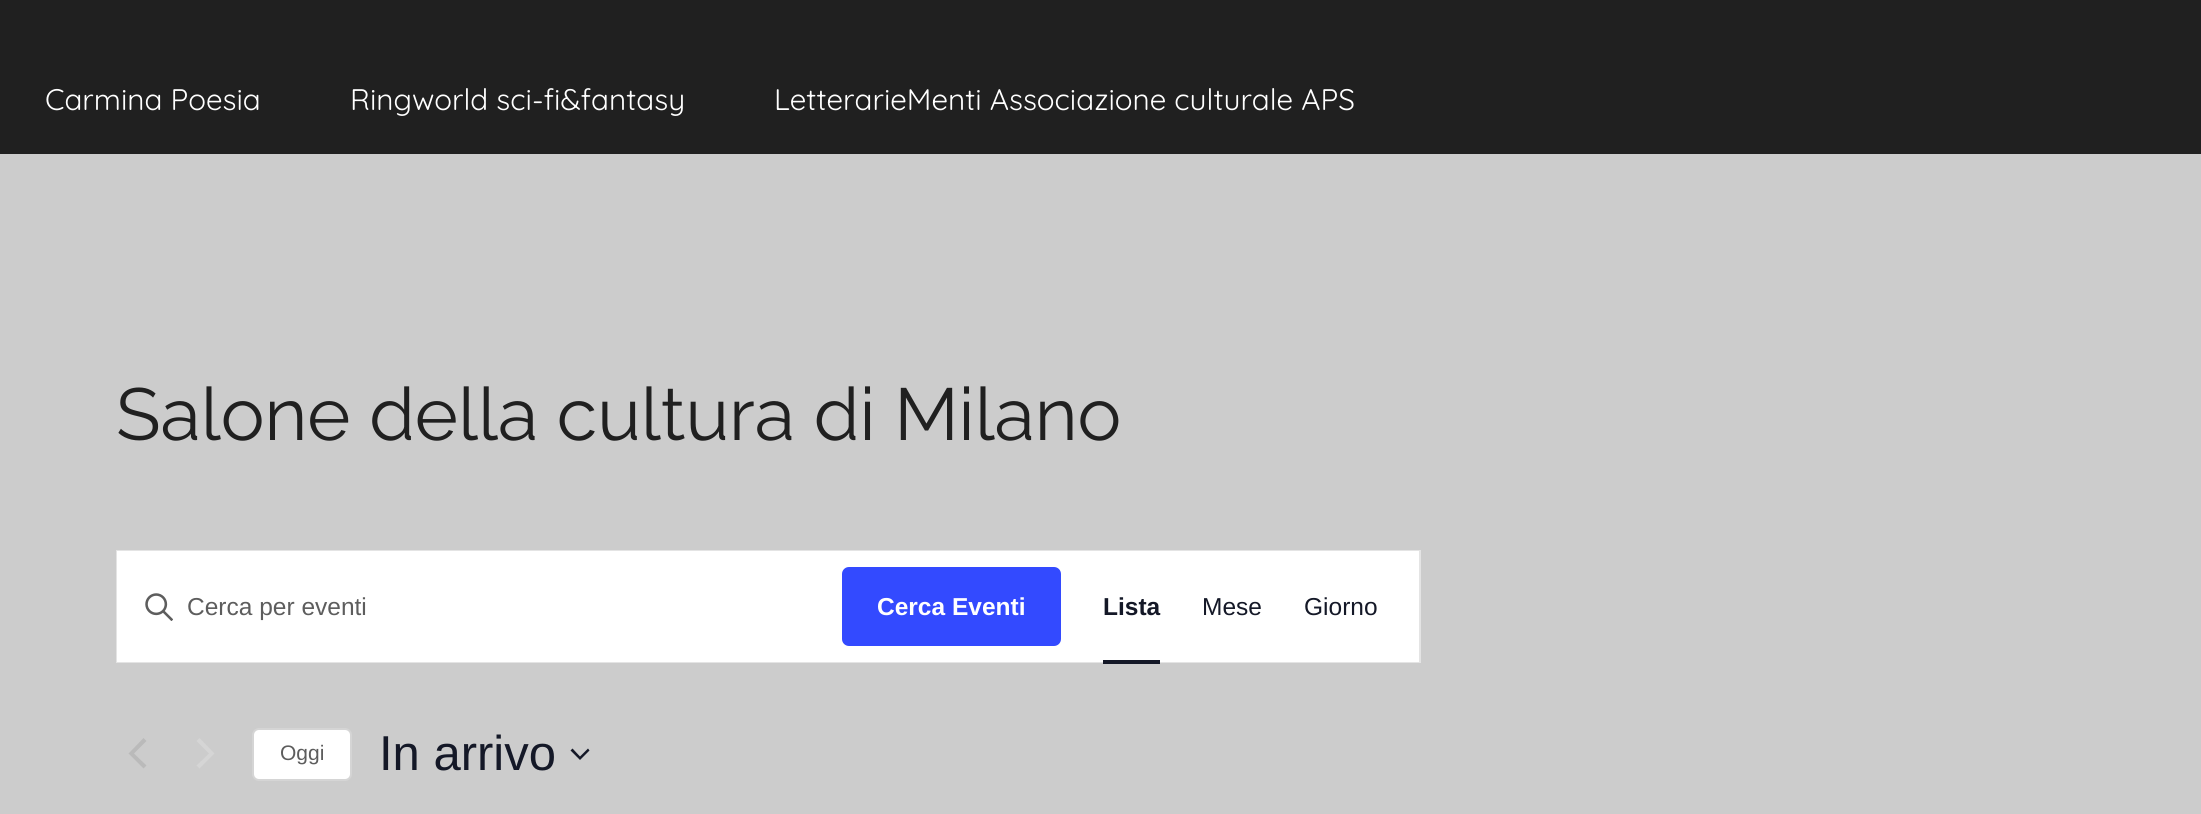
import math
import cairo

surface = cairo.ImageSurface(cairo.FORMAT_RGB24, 2201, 814)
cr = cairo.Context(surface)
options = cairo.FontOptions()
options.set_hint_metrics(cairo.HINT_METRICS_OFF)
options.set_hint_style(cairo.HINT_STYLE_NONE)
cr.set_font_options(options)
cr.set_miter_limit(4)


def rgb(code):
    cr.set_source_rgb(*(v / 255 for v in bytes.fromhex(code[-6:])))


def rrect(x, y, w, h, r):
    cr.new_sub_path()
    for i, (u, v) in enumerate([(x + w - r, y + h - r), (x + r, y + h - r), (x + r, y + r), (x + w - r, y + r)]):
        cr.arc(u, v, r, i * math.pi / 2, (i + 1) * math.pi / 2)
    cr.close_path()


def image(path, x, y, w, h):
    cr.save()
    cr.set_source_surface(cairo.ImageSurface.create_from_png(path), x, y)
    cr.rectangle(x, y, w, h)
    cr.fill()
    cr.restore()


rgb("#cccccc")
cr.paint()
rgb("#202020")
cr.rectangle(0, 0, 2201, 154)
cr.fill()
cr.rectangle(117, 551, 1303, 111)
rgb("#e4e4e4")
cr.stroke()
rgb("#ffffff")
cr.rectangle(117, 551, 1302, 111)
cr.fill()
image("img/1.png", 145, 593, 28, 28)
rgb("#334aff")
rrect(842, 567, 219, 79, 7)
cr.fill()
rgb("#141827")
cr.rectangle(1103, 660, 57, 4)
cr.fill()
rgb("#bababa")
cr.new_path()
cr.move_to(146.5, 765.5)
cr.line_to(143.5, 768.5)
cr.line_to(128.5, 753.5)
cr.line_to(143.5, 738)
cr.line_to(146.5, 741)
cr.line_to(134, 753.5)
cr.close_path()
cr.fill()
rgb("#d5d5d5")
cr.new_path()
cr.move_to(196.5, 741)
cr.line_to(199.5, 738)
cr.line_to(214.5, 753.5)
cr.line_to(199.5, 768.5)
cr.line_to(196.5, 765.5)
cr.line_to(209, 753.5)
cr.close_path()
cr.fill()
rgb("#ffffff")
rrect(253, 729, 98, 51, 6)
cr.fill_preserve()
rgb("#d5d5d5")
cr.stroke()
rgb("#141827")
cr.set_fill_rule(cairo.FILL_RULE_EVEN_ODD)
cr.new_path()
cr.move_to(572.5, 748.5)
cr.line_to(580, 756.5)
cr.line_to(588, 748.5)
cr.line_to(589.5, 750.5)
cr.line_to(580, 760)
cr.line_to(570.5, 750.5)
cr.close_path()
cr.fill()
cr.select_font_face("Quicksand Light")
cr.set_font_size(29.75)
rgb("#ffffff")
for x, y, s in [
    (45, 110, "Carmina Poesia"),
    (350, 110, "Ringworld sci-fi&fantasy"),
    (774, 110, "LetterarieMenti Associazione culturale APS"),
]:
    cr.move_to(x, y)
    cr.show_text(s)
cr.select_font_face("Raleway Thin")
cr.set_font_size(73.5)
rgb("#202020")
cr.move_to(116, 440)
cr.show_text("Salone della cultura di Milano")
cr.select_font_face("Liberation Sans")
cr.set_font_size(24.5)
rgb("#5d5d5d")
cr.move_to(187, 615)
cr.show_text("Cerca per eventi")
cr.select_font_face("Liberation Sans", cairo.FONT_SLANT_NORMAL, cairo.FONT_WEIGHT_BOLD)
rgb("#ffffff")
cr.move_to(877, 615)
cr.show_text("Cerca Eventi")
rgb("#141827")
cr.move_to(1103, 615)
cr.show_text("Lista")
cr.select_font_face("Liberation Sans")
cr.move_to(1202, 615)
cr.show_text("Mese")
cr.move_to(1304, 615)
cr.show_text("Giorno")
cr.set_font_size(21)
rgb("#5d5d5d")
cr.move_to(280, 760)
cr.show_text("Oggi")
cr.set_font_size(49)
rgb("#141827")
cr.move_to(379, 770)
cr.show_text("In arrivo")
surface.write_to_png("page.png")
